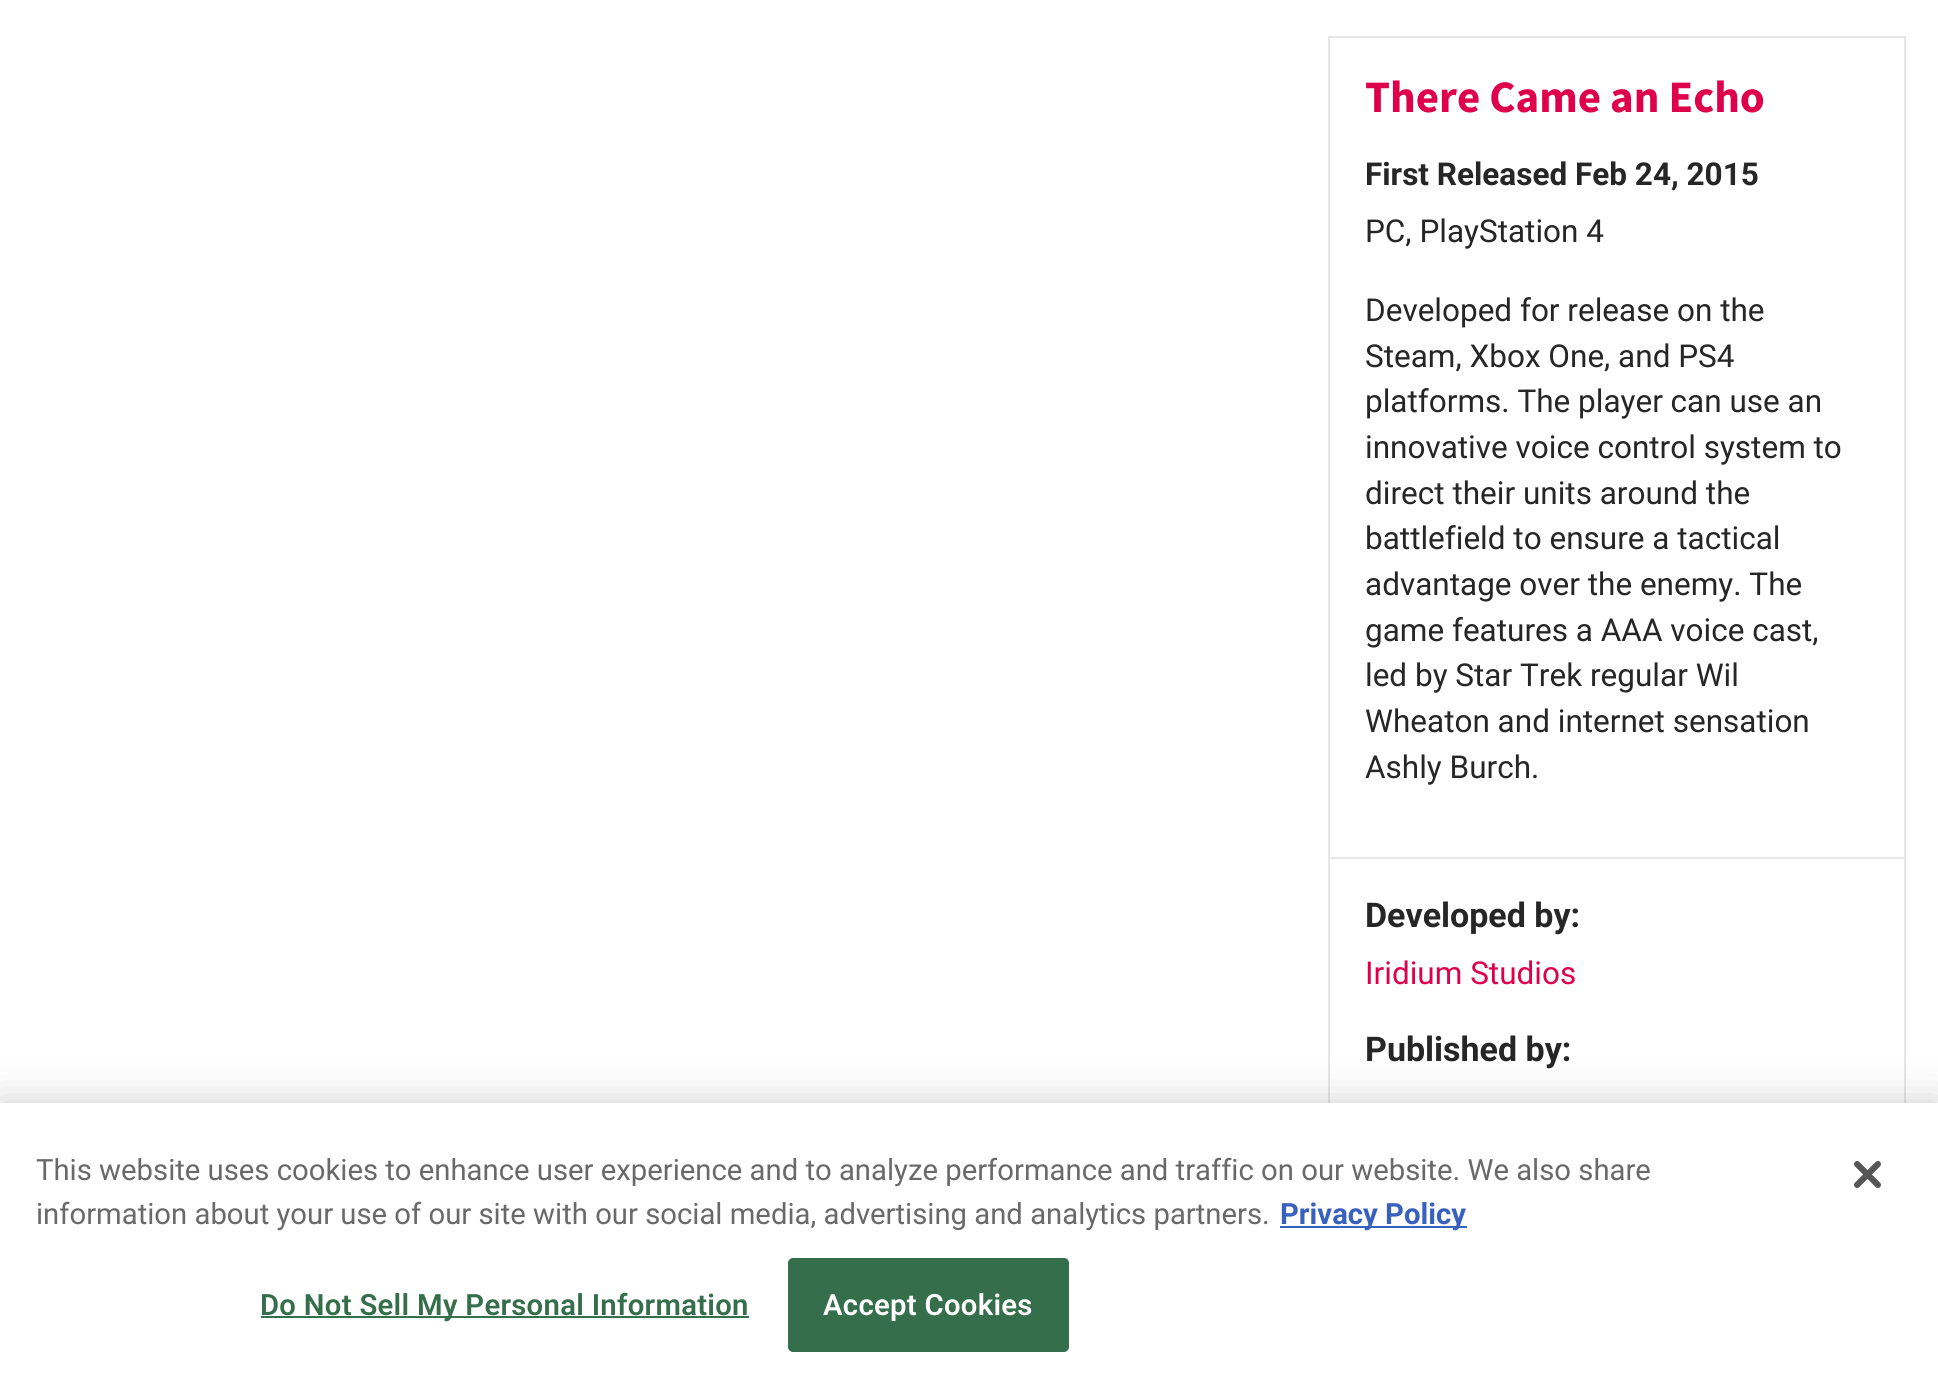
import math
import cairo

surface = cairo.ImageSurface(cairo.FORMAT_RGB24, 1938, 1387)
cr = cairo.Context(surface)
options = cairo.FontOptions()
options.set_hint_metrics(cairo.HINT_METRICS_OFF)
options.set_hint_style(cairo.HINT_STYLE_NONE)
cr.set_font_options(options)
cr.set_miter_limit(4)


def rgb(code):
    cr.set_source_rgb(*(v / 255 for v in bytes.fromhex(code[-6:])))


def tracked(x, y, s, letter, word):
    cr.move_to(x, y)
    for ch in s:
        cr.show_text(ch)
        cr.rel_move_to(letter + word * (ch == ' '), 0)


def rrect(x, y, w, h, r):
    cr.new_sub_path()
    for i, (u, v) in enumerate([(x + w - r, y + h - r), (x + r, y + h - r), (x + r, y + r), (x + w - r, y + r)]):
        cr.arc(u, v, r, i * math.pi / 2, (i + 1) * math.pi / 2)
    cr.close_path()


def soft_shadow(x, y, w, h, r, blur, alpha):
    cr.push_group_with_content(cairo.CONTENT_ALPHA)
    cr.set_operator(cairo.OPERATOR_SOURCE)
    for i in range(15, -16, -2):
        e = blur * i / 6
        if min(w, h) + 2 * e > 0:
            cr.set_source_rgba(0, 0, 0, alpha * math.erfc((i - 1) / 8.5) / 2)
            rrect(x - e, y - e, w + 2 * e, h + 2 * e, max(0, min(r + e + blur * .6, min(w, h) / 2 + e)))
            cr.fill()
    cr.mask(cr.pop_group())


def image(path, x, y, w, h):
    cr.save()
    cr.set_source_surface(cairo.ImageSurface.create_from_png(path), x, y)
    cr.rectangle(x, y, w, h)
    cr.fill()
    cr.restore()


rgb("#ffffff")
cr.paint()
cr.rectangle(1329, 37, 576, 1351)
rgb("#e6e6e6")
cr.stroke()
cr.rectangle(1330, 857, 574, 2)
cr.fill()
rgb("#000000")
soft_shadow(0, 1103, 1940, 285, 0, 20, 0.2)
for x, y, w, h, color in [
    (0, 1103, 1938, 284, "#ffffff"),
    (1280, 1226, 187, 2, "#3860be"),
    (261, 1316, 488, 2, "#346e4a"),
]:
    rgb(color)
    cr.rectangle(x, y, w, h)
    cr.fill()
rrect(789, 1259, 279, 92, 4)
cr.fill_preserve()
cr.stroke()
image("img/1.png", 1854, 1161, 27, 27)
cr.select_font_face("Source Sans Pro", cairo.FONT_SLANT_NORMAL, cairo.FONT_WEIGHT_BOLD)
cr.set_font_size(45)
rgb("#de004a")
cr.move_to(1365, 112)
cr.show_text("There Came an Echo")
cr.select_font_face("Roboto", cairo.FONT_SLANT_NORMAL, cairo.FONT_WEIGHT_BOLD)
cr.set_font_size(31.5)
rgb("#262626")
cr.move_to(1365, 185)
cr.show_text("First Released Feb 24, 2015")
cr.select_font_face("Roboto")
for x, y, s in [
    (1365, 242, "PC, PlayStation 4"),
    (1365, 321, "Developed for release on the"),
    (1365, 367, "Steam, Xbox One, and PS4"),
    (1365, 412, "platforms. The player can use an"),
    (1365, 458, "innovative voice control system to"),
    (1365, 504, "direct their units around the"),
    (1365, 549, "battlefield to ensure a tactical"),
    (1365, 595, "advantage over the enemy. The"),
    (1365, 641, "game features a AAA voice cast,"),
    (1365, 686, "led by Star Trek regular Wil"),
    (1365, 732, "Wheaton and internet sensation"),
    (1365, 778, "Ashly Burch."),
]:
    cr.move_to(x, y)
    cr.show_text(s)
cr.select_font_face("Roboto", cairo.FONT_SLANT_NORMAL, cairo.FONT_WEIGHT_BOLD)
cr.set_font_size(34)
cr.move_to(1365, 927)
cr.show_text("Developed by:")
cr.select_font_face("Roboto")
cr.set_font_size(31.5)
rgb("#de004a")
cr.move_to(1365, 984)
cr.show_text("Iridium Studios")
cr.select_font_face("Roboto", cairo.FONT_SLANT_NORMAL, cairo.FONT_WEIGHT_BOLD)
cr.set_font_size(34)
rgb("#262626")
cr.move_to(1365, 1061)
cr.show_text("Published by:")
cr.select_font_face("Roboto")
cr.set_font_size(29.27)
rgb("#696969")
cr.move_to(36, 1180)
cr.show_text("This website uses cookies to enhance user experience and to analyze performance and traffic on our website. We also share")
cr.move_to(36, 1224)
cr.show_text("information about your use of our site with our social media, advertising and analytics partners.")
cr.select_font_face("Roboto", cairo.FONT_SLANT_NORMAL, cairo.FONT_WEIGHT_BOLD)
rgb("#3860be")
cr.move_to(1280, 1224)
cr.show_text("Privacy Policy")
cr.select_font_face("Roboto SemiBold")
rgb("#346e4a")
tracked(260, 1315, "Do Not Sell My Personal Information", 0.3, 0)
rgb("#ffffff")
tracked(823, 1315, "Accept Cookies", 0.3, 0)
surface.write_to_png("page.png")
